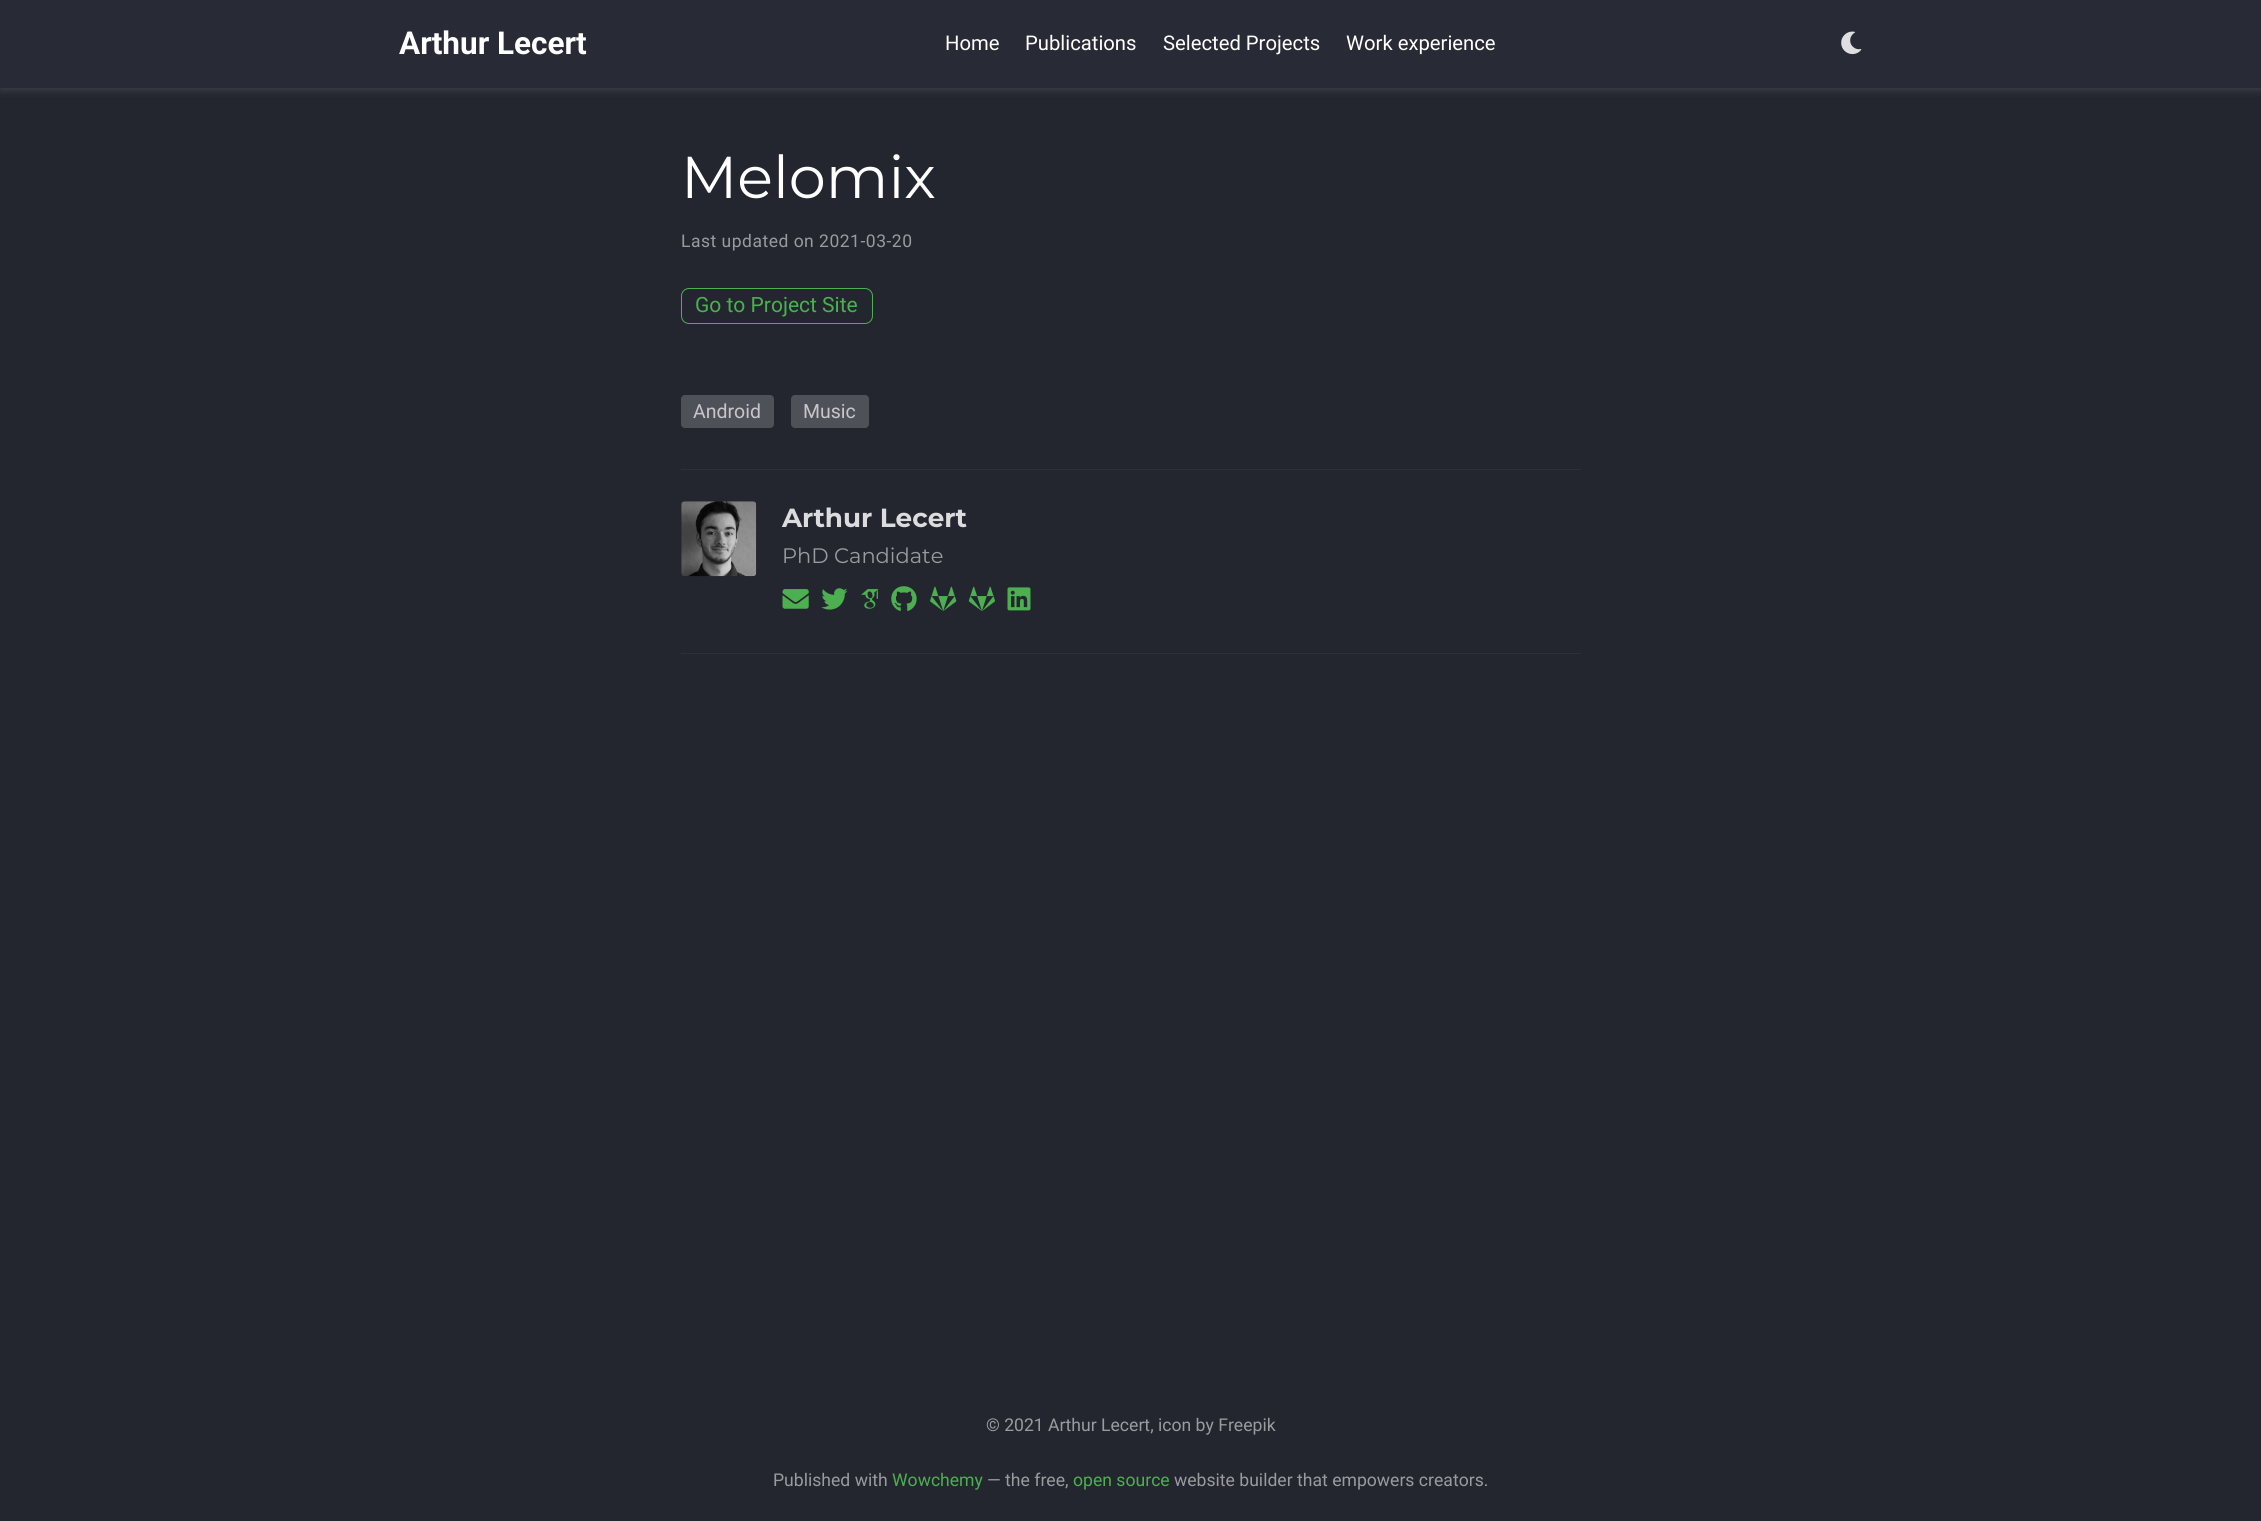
import math
import cairo

surface = cairo.ImageSurface(cairo.FORMAT_RGB24, 2261, 1521)
cr = cairo.Context(surface)
options = cairo.FontOptions()
options.set_hint_metrics(cairo.HINT_METRICS_OFF)
options.set_hint_style(cairo.HINT_STYLE_NONE)
cr.set_font_options(options)
cr.set_miter_limit(4)


def rgb(code):
    cr.set_source_rgb(*(v / 255 for v in bytes.fromhex(code[-6:])))


def tracked(x, y, s, letter, word):
    cr.move_to(x, y)
    for ch in s:
        cr.show_text(ch)
        cr.rel_move_to(letter + word * (ch == ' '), 0)


def rrect(x, y, w, h, r):
    cr.new_sub_path()
    for i, (u, v) in enumerate([(x + w - r, y + h - r), (x + r, y + h - r), (x + r, y + r), (x + w - r, y + r)]):
        cr.arc(u, v, r, i * math.pi / 2, (i + 1) * math.pi / 2)
    cr.close_path()


def soft_shadow(x, y, w, h, r, blur, alpha):
    cr.push_group_with_content(cairo.CONTENT_ALPHA)
    cr.set_operator(cairo.OPERATOR_SOURCE)
    for i in range(15, -16, -2):
        e = blur * i / 6
        if min(w, h) + 2 * e > 0:
            cr.set_source_rgba(0, 0, 0, alpha * math.erfc((i - 1) / 8.5) / 2)
            rrect(x - e, y - e, w + 2 * e, h + 2 * e, max(0, min(r + e + blur * .6, min(w, h) / 2 + e)))
            cr.fill()
    cr.mask(cr.pop_group())


def image(path, x, y, w, h):
    cr.save()
    cr.set_source_surface(cairo.ImageSurface.create_from_png(path), x, y)
    cr.rectangle(x, y, w, h)
    cr.fill()
    cr.restore()


rgb("#23252f")
cr.paint()
rgb("#ffffff")
soft_shadow(0, 4, 2261, 87, 0, 3.5, 0.11)
rgb("#282a36")
cr.rectangle(0, 0, 2261, 88)
cr.fill()
image("img/1.png", 1841, 31, 21, 24)
rrect(681.5, 288.5, 191, 35, 7.5)
rgb("#4caf50")
cr.set_line_width(1)
cr.stroke()
rgb("#4f5159")
rrect(681, 395, 93, 33, 4)
cr.fill()
rrect(791, 395, 78, 33, 4)
cr.fill()
rgb("#2e3039")
cr.rectangle(681, 469, 900, 1)
cr.fill()
image("img/2.png", 681, 501, 76, 76)
image("img/3.png", 782, 589, 27, 20)
image("img/4.png", 821, 588, 27, 22)
image("img/5.png", 861, 589, 18, 20)
image("img/6.png", 891, 586, 26, 25)
image("img/7.png", 930, 586, 27, 25)
image("img/8.png", 968, 586, 27, 25)
image("img/9.png", 1007, 587, 24, 24)
cr.rectangle(681, 653, 900, 1)
cr.fill()
cr.select_font_face("Roboto", cairo.FONT_SLANT_NORMAL, cairo.FONT_WEIGHT_BOLD)
cr.set_font_size(31.5)
rgb("#ffffff")
cr.move_to(399, 54)
cr.show_text("Arthur Lecert")
cr.select_font_face("Roboto")
cr.set_font_size(20.25)
for x, y, s in [
    (945, 50, "Home"),
    (1025, 50, "Publications"),
    (1163, 50, "Selected Projects"),
    (1346, 50, "Work experience"),
]:
    cr.move_to(x, y)
    cr.show_text(s)
cr.select_font_face("Montserrat")
cr.set_font_size(59)
cr.move_to(681, 198)
cr.show_text("Melomix")
cr.select_font_face("Roboto")
cr.set_font_size(17.5)
rgb("#9a9b9f")
tracked(681, 247, "Last updated on 2021-03-20", 0.5, 0)
cr.set_font_size(21)
rgb("#4caf50")
cr.move_to(695, 312)
cr.show_text("Go to Project Site")
cr.set_font_size(19.5)
rgb("#c7c7ca")
cr.move_to(693, 418)
cr.show_text("Android")
cr.move_to(803, 418)
cr.show_text("Music")
cr.select_font_face("Montserrat", cairo.FONT_SLANT_NORMAL, cairo.FONT_WEIGHT_BOLD)
cr.set_font_size(26.25)
rgb("#dcdcde")
cr.move_to(782, 527)
cr.show_text("Arthur Lecert")
cr.select_font_face("Montserrat")
cr.set_font_size(21)
rgb("#9a9b9f")
cr.move_to(782, 563)
cr.show_text("PhD Candidate")
cr.select_font_face("Roboto")
cr.set_font_size(17.6)
cr.move_to(986, 1431)
cr.show_text("© 2021 Arthur Lecert, icon by Freepik")
cr.move_to(773, 1486)
cr.show_text("Published with")
rgb("#4caf50")
cr.move_to(892, 1486)
cr.show_text("Wowchemy")
rgb("#9a9b9f")
cr.move_to(987, 1486)
cr.show_text("— the free,")
rgb("#4caf50")
cr.move_to(1073, 1486)
cr.show_text("open source")
rgb("#9a9b9f")
cr.move_to(1174, 1486)
cr.show_text("website builder that empowers creators.")
surface.write_to_png("page.png")
